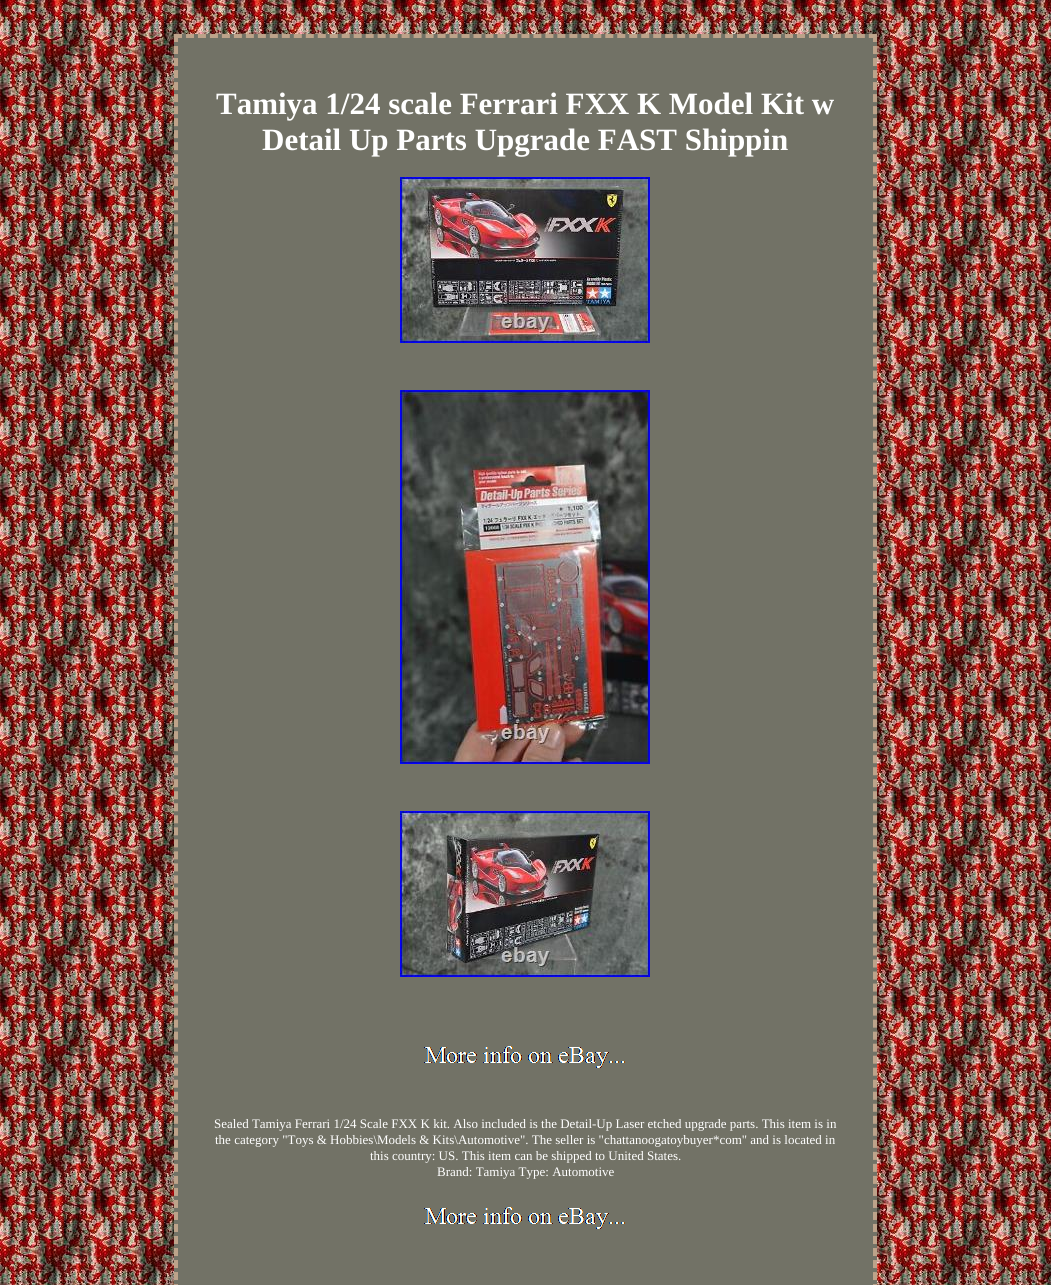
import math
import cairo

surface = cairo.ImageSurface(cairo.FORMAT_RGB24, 1051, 1285)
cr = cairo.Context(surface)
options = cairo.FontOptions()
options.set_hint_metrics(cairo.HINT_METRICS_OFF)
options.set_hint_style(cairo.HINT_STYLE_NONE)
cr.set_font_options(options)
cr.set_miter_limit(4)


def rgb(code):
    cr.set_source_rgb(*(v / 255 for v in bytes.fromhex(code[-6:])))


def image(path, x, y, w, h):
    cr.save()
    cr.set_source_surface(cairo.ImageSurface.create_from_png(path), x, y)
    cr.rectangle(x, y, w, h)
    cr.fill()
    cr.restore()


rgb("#ffffff")
cr.paint()
image("img/1.png", 0, 0, 1051, 1285)
rgb("#727266")
cr.rectangle(174, 34, 703, 1251)
cr.fill()
cr.new_path()
cr.move_to(174, 36)
cr.line_to(877, 36)
rgb("#bda38a")
cr.set_line_width(4)
cr.set_dash([8, 3.98])
cr.stroke()
cr.new_path()
cr.move_to(875, 34)
cr.line_to(875, 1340)
cr.set_dash([8, 4.02])
cr.stroke()
cr.new_path()
cr.move_to(176, 34)
cr.line_to(176, 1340)
cr.stroke()
image("img/2.png", 400, 177, 250, 166)
image("img/3.png", 400, 390, 250, 374)
image("img/4.png", 400, 811, 250, 166)
image("img/5.png", 424, 1046, 201, 22)
image("img/5.png", 424, 1207, 201, 22)
cr.select_font_face("Liberation Serif", cairo.FONT_SLANT_NORMAL, cairo.FONT_WEIGHT_BOLD)
cr.set_font_size(31)
rgb("#ffffff")
cr.move_to(216, 114)
cr.show_text("Tamiya 1/24 scale Ferrari FXX K Model Kit w")
cr.move_to(262, 150)
cr.show_text("Detail Up Parts Upgrade FAST Shippin")
cr.select_font_face("Liberation Serif")
cr.set_font_size(13)
for x, y, s in [
    (214, 1128, "Sealed Tamiya Ferrari 1/24 Scale FXX K kit. Also included is the Detail-Up Laser etched upgrade parts. This item is in"),
    (215, 1144, "the category \"Toys & Hobbies\\Models & Kits\\Automotive\". The seller is \"chattanoogatoybuyer*com\" and is located in"),
    (370, 1160, "this country: US. This item can be shipped to United States."),
    (437, 1176, "Brand: Tamiya Type: Automotive"),
]:
    cr.move_to(x, y)
    cr.show_text(s)
surface.write_to_png("page.png")
